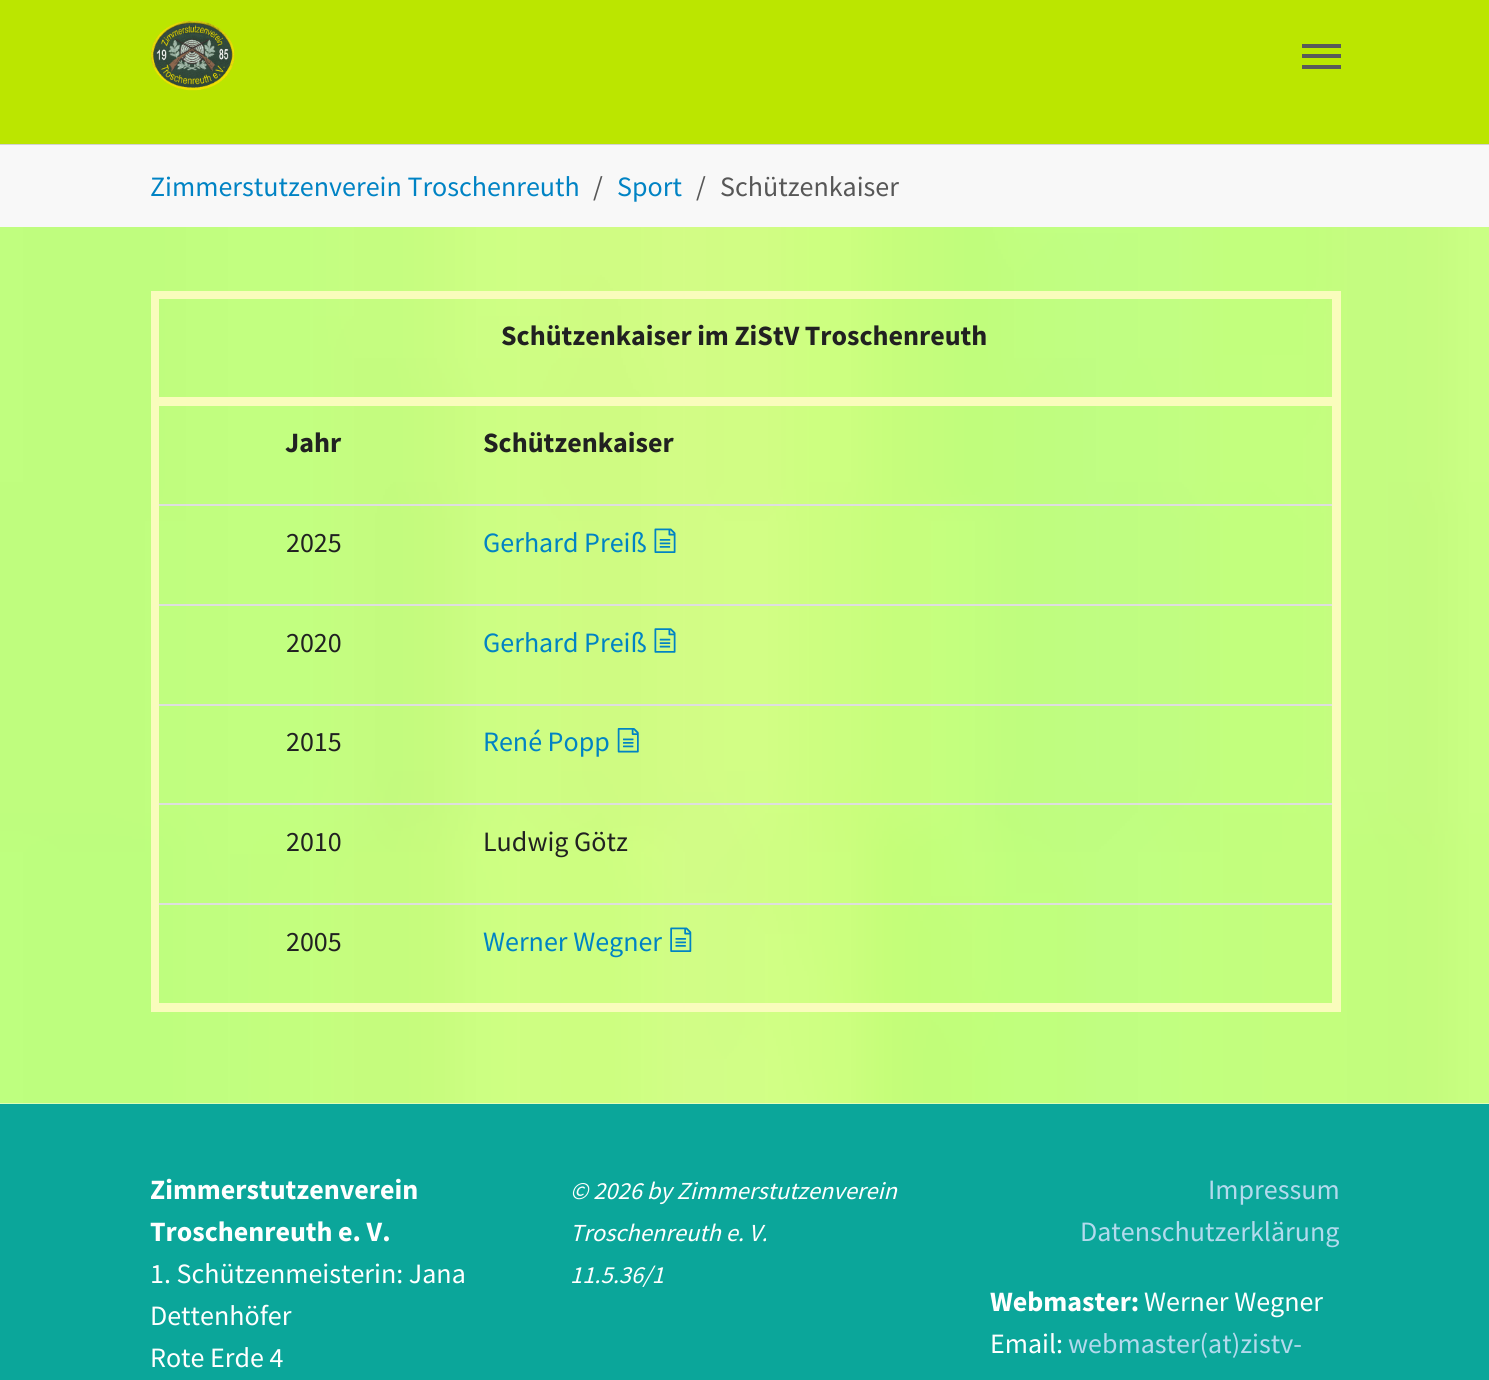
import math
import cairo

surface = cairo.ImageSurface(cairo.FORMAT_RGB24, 1489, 1380)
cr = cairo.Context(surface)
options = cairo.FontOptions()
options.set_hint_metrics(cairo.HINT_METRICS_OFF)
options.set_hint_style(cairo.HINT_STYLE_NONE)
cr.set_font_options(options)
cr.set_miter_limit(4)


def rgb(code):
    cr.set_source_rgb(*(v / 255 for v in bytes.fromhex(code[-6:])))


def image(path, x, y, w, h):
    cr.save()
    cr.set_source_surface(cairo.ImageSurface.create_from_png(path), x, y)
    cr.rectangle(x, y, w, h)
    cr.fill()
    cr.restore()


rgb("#ffffff")
cr.paint()
rgb("#d3d3d3")
cr.rectangle(0, 144, 1489, 1)
cr.fill()
rgb("#bbe600")
cr.rectangle(0, 0, 1489, 144)
cr.fill()
image("img/1.png", 151, 21, 84, 70)
for x, y, w, h, color in [
    (1302, 54, 39, 4, "#595959"),
    (1302, 44, 39, 4, "#595959"),
    (1302, 65, 39, 4, "#595959"),
    (0, 145, 1489, 82, "#f8f8f8"),
]:
    rgb(color)
    cr.rectangle(x, y, w, h)
    cr.fill()
image("img/2.png", 0, 227, 1489, 877)
for x, y, w, h, color in [
    (151, 291, 1181, 8, "#f9fcbc"),
    (1332, 291, 9, 106, "#f9fcbc"),
    (159, 397, 1182, 9, "#f9fcbc"),
    (151, 291, 8, 115, "#f9fcbc"),
    (154, 504, 1183, 2, "#dedede"),
    (154, 604, 1183, 2, "#dedede"),
]:
    rgb(color)
    cr.rectangle(x, y, w, h)
    cr.fill()
image("img/3.png", 654, 528, 22, 25)
cr.rectangle(154, 704, 1183, 2)
cr.fill()
image("img/4.png", 654, 628, 22, 25)
cr.rectangle(154, 803, 1183, 2)
cr.fill()
image("img/5.png", 617, 728, 22, 25)
for x, y, w, h, color in [
    (154, 903, 1183, 2, "#dedede"),
    (151, 406, 8, 606, "#f9fcbc"),
    (1332, 406, 9, 597, "#f9fcbc"),
    (159, 1003, 1182, 9, "#f9fcbc"),
]:
    rgb(color)
    cr.rectangle(x, y, w, h)
    cr.fill()
image("img/6.png", 670, 927, 22, 25)
rgb("#0ba69a")
cr.rectangle(0, 1104, 1489, 276)
cr.fill()
cr.select_font_face("Source Sans Pro")
cr.set_font_size(28)
rgb("#0083c4")
cr.move_to(150, 196)
cr.show_text("Zimmerstutzenverein Troschenreuth")
rgb("#575757")
cr.move_to(593, 196)
cr.show_text("/")
rgb("#0083c4")
cr.move_to(617, 196)
cr.show_text("Sport")
rgb("#575757")
cr.move_to(696, 196)
cr.show_text("/")
cr.move_to(720, 196)
cr.show_text("Schützenkaiser")
cr.select_font_face("Source Sans Pro", cairo.FONT_SLANT_NORMAL, cairo.FONT_WEIGHT_BOLD)
rgb("#212121")
for x, y, s in [
    (501, 345, "Schützenkaiser im ZiStV Troschenreuth"),
    (285, 452, "Jahr"),
    (483, 452, "Schützenkaiser"),
]:
    cr.move_to(x, y)
    cr.show_text(s)
cr.select_font_face("Source Sans Pro")
cr.move_to(286, 552)
cr.show_text("2025")
rgb("#0083c4")
cr.move_to(483, 552)
cr.show_text("Gerhard Preiß")
rgb("#212121")
cr.move_to(286, 652)
cr.show_text("2020")
rgb("#0083c4")
cr.move_to(483, 652)
cr.show_text("Gerhard Preiß")
rgb("#212121")
cr.move_to(286, 751)
cr.show_text("2015")
rgb("#0083c4")
cr.move_to(483, 751)
cr.show_text("René Popp")
rgb("#212121")
for x, y, s in [
    (286, 851, "2010"),
    (483, 851, "Ludwig Götz"),
    (286, 951, "2005"),
]:
    cr.move_to(x, y)
    cr.show_text(s)
rgb("#0083c4")
cr.move_to(483, 951)
cr.show_text("Werner Wegner")
cr.select_font_face("Source Sans Pro", cairo.FONT_SLANT_NORMAL, cairo.FONT_WEIGHT_BOLD)
rgb("#ffffff")
cr.move_to(150, 1199)
cr.show_text("Zimmerstutzenverein")
cr.move_to(150, 1241)
cr.show_text("Troschenreuth e. V.")
cr.select_font_face("Source Sans Pro")
for x, y, s in [
    (150, 1283, "1. Schützenmeisterin: Jana"),
    (150, 1325, "Dettenhöfer"),
    (150, 1367, "Rote Erde 4"),
]:
    cr.move_to(x, y)
    cr.show_text(s)
cr.select_font_face("Source Sans Pro", cairo.FONT_SLANT_ITALIC)
cr.set_font_size(24.5)
for x, y, s in [
    (570, 1199, "© 2026 by Zimmerstutzenverein"),
    (570, 1241, "Troschenreuth e. V."),
    (570, 1283, "11.5.36/1"),
]:
    cr.move_to(x, y)
    cr.show_text(s)
cr.select_font_face("Source Sans Pro")
cr.set_font_size(28)
rgb("#b3daed")
cr.move_to(1208, 1199)
cr.show_text("Impressum")
cr.move_to(1080, 1241)
cr.show_text("Datenschutzerklärung")
cr.select_font_face("Source Sans Pro", cairo.FONT_SLANT_NORMAL, cairo.FONT_WEIGHT_BOLD)
rgb("#ffffff")
cr.move_to(990, 1311)
cr.show_text("Webmaster:")
cr.select_font_face("Source Sans Pro")
cr.move_to(1144, 1311)
cr.show_text("Werner Wegner")
cr.move_to(990, 1353)
cr.show_text("Email:")
rgb("#b3daed")
cr.move_to(1068, 1353)
cr.show_text("webmaster(at)zistv-")
surface.write_to_png("page.png")
